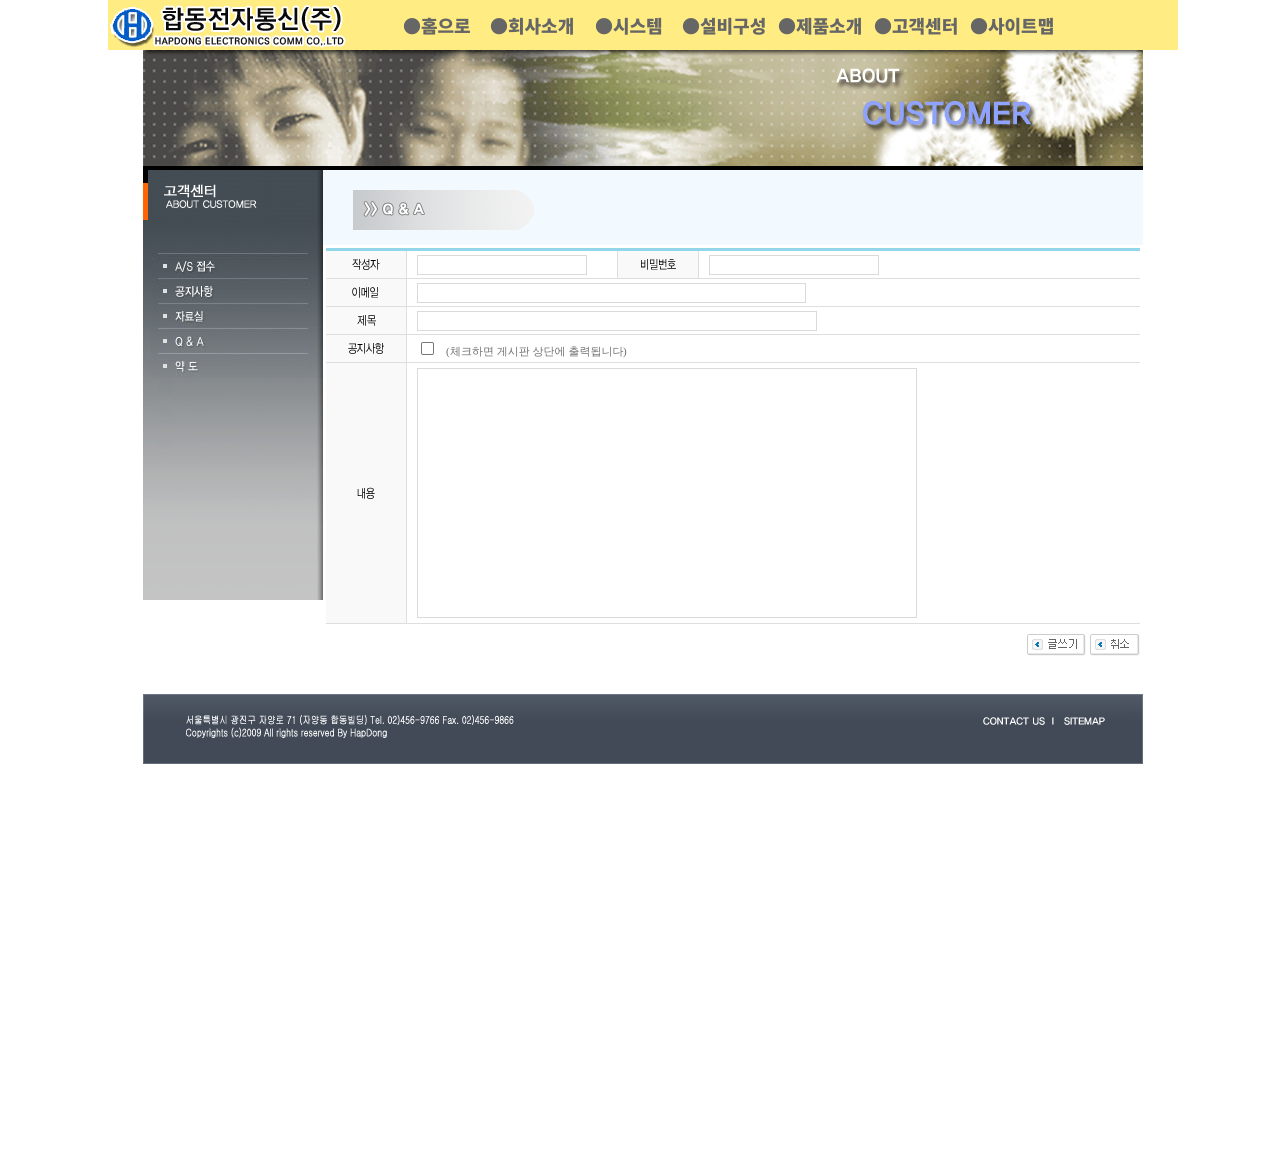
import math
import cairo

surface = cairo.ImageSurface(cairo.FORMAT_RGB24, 1286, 1149)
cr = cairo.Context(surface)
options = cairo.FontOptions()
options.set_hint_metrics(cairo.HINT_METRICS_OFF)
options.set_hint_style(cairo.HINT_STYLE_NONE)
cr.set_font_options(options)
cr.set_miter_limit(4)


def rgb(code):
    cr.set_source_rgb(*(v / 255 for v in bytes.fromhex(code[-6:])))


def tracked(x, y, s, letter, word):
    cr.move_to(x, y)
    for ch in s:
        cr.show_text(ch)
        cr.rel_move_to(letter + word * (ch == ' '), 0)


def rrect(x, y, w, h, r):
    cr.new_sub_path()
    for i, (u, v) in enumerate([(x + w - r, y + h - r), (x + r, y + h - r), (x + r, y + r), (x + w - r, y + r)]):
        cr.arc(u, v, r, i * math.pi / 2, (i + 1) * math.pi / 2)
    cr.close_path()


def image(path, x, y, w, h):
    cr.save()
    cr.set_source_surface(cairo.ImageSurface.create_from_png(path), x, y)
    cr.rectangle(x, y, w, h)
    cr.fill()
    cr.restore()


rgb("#ffffff")
cr.paint()
rgb("#ffec82")
cr.rectangle(108, 0, 1070, 50)
cr.fill()
image("img/1.png", 110, 5, 236, 43)
image("img/2.png", 143, 50, 1000, 120)
image("img/3.png", 143, 170, 180, 50)
image("img/4.png", 143, 220, 180, 380)
image("img/5.png", 152, 253, 171, 24)
image("img/6.png", 153, 278, 169, 24)
image("img/7.png", 154, 303, 168, 24)
image("img/8.png", 151, 328, 172, 25)
image("img/9.png", 151, 353, 170, 25)
rgb("#f3faff")
cr.rectangle(323, 170, 820, 75)
cr.fill()
image("img/10.png", 353, 190, 181, 40)
rgb("#92d6e9")
cr.rectangle(326, 248, 814, 3)
cr.fill()
rgb("#f9f9f9")
cr.rectangle(326, 251, 80, 27)
cr.fill()
image("img/11.png", 352, 259, 28, 11)
rgb("#dedede")
cr.rectangle(406, 251, 1, 27)
cr.fill()
cr.rectangle(417.5, 255.5, 169, 19)
rgb("#dadada")
cr.set_line_width(1)
cr.stroke()
rgb("#dedede")
cr.rectangle(617, 251, 1, 27)
cr.fill()
rgb("#f9f9f9")
cr.rectangle(618, 251, 80, 27)
cr.fill()
image("img/12.png", 641, 259, 35, 11)
rgb("#dedede")
cr.rectangle(698, 251, 1, 27)
cr.fill()
cr.rectangle(709.5, 255.5, 169, 19)
rgb("#dadada")
cr.stroke()
rgb("#dedede")
cr.rectangle(326, 278, 814, 1)
cr.fill()
rgb("#f9f9f9")
cr.rectangle(326, 279, 80, 27)
cr.fill()
image("img/13.png", 352, 287, 26, 11)
rgb("#dedede")
cr.rectangle(406, 279, 1, 27)
cr.fill()
cr.rectangle(417.5, 283.5, 388, 19)
rgb("#dadada")
cr.stroke()
rgb("#dedede")
cr.rectangle(326, 306, 814, 1)
cr.fill()
rgb("#f9f9f9")
cr.rectangle(326, 307, 80, 27)
cr.fill()
image("img/14.png", 357, 315, 19, 11)
rgb("#dedede")
cr.rectangle(406, 307, 1, 27)
cr.fill()
cr.rectangle(417.5, 311.5, 399, 19)
rgb("#dadada")
cr.stroke()
rgb("#dedede")
cr.rectangle(326, 334, 814, 1)
cr.fill()
rgb("#f9f9f9")
cr.rectangle(326, 335, 80, 27)
cr.fill()
image("img/15.png", 348, 343, 36, 11)
rgb("#dedede")
cr.rectangle(406, 335, 1, 27)
cr.fill()
rrect(421.5, 342.5, 12, 12, 1.5)
rgb("#767676")
cr.stroke()
rgb("#dedede")
cr.rectangle(326, 362, 814, 1)
cr.fill()
rgb("#f9f9f9")
cr.rectangle(326, 363, 80, 260)
cr.fill()
image("img/16.png", 357, 487, 18, 12)
rgb("#dedede")
cr.rectangle(406, 363, 1, 260)
cr.fill()
cr.rectangle(417.5, 368.5, 499, 249)
rgb("#dadada")
cr.stroke()
rgb("#dedede")
cr.rectangle(326, 623, 814, 1)
cr.fill()
image("img/17.png", 1027, 634, 59, 22)
image("img/18.png", 1090, 634, 50, 22)
image("img/19.png", 143, 694, 23, 70)
image("img/20.png", 166, 694, 809, 70)
image("img/21.png", 186, 715, 328, 23)
image("img/22.png", 975, 694, 140, 70)
image("img/23.png", 983, 717, 71, 8)
image("img/24.png", 1064, 717, 41, 8)
image("img/25.png", 1115, 694, 28, 70)
cr.select_font_face("Noto Sans KR Black")
cr.set_font_size(18)
rgb("#666666")
for x, y, s in [
    (403, 33, "●홈으로"),
    (490, 33, "●회사소개"),
    (595, 33, "●시스템"),
    (682, 33, "●설비구성"),
    (778, 33, "●제품소개"),
    (874, 33, "●고객센터"),
    (970, 33, "●사이트맵"),
]:
    cr.move_to(x, y)
    cr.show_text(s)
cr.select_font_face("Liberation Serif")
cr.set_font_size(11)
rgb("#6f6f6f")
cr.move_to(446, 355)
cr.show_text("(")
cr.select_font_face("WenQuanYi Zen Hei Medium")
tracked(450, 355, "체크하면 게시판 상단에 출력됩니다", 0, -0.5)
cr.select_font_face("Liberation Serif")
cr.move_to(623, 355)
cr.show_text(")")
surface.write_to_png("page.png")
